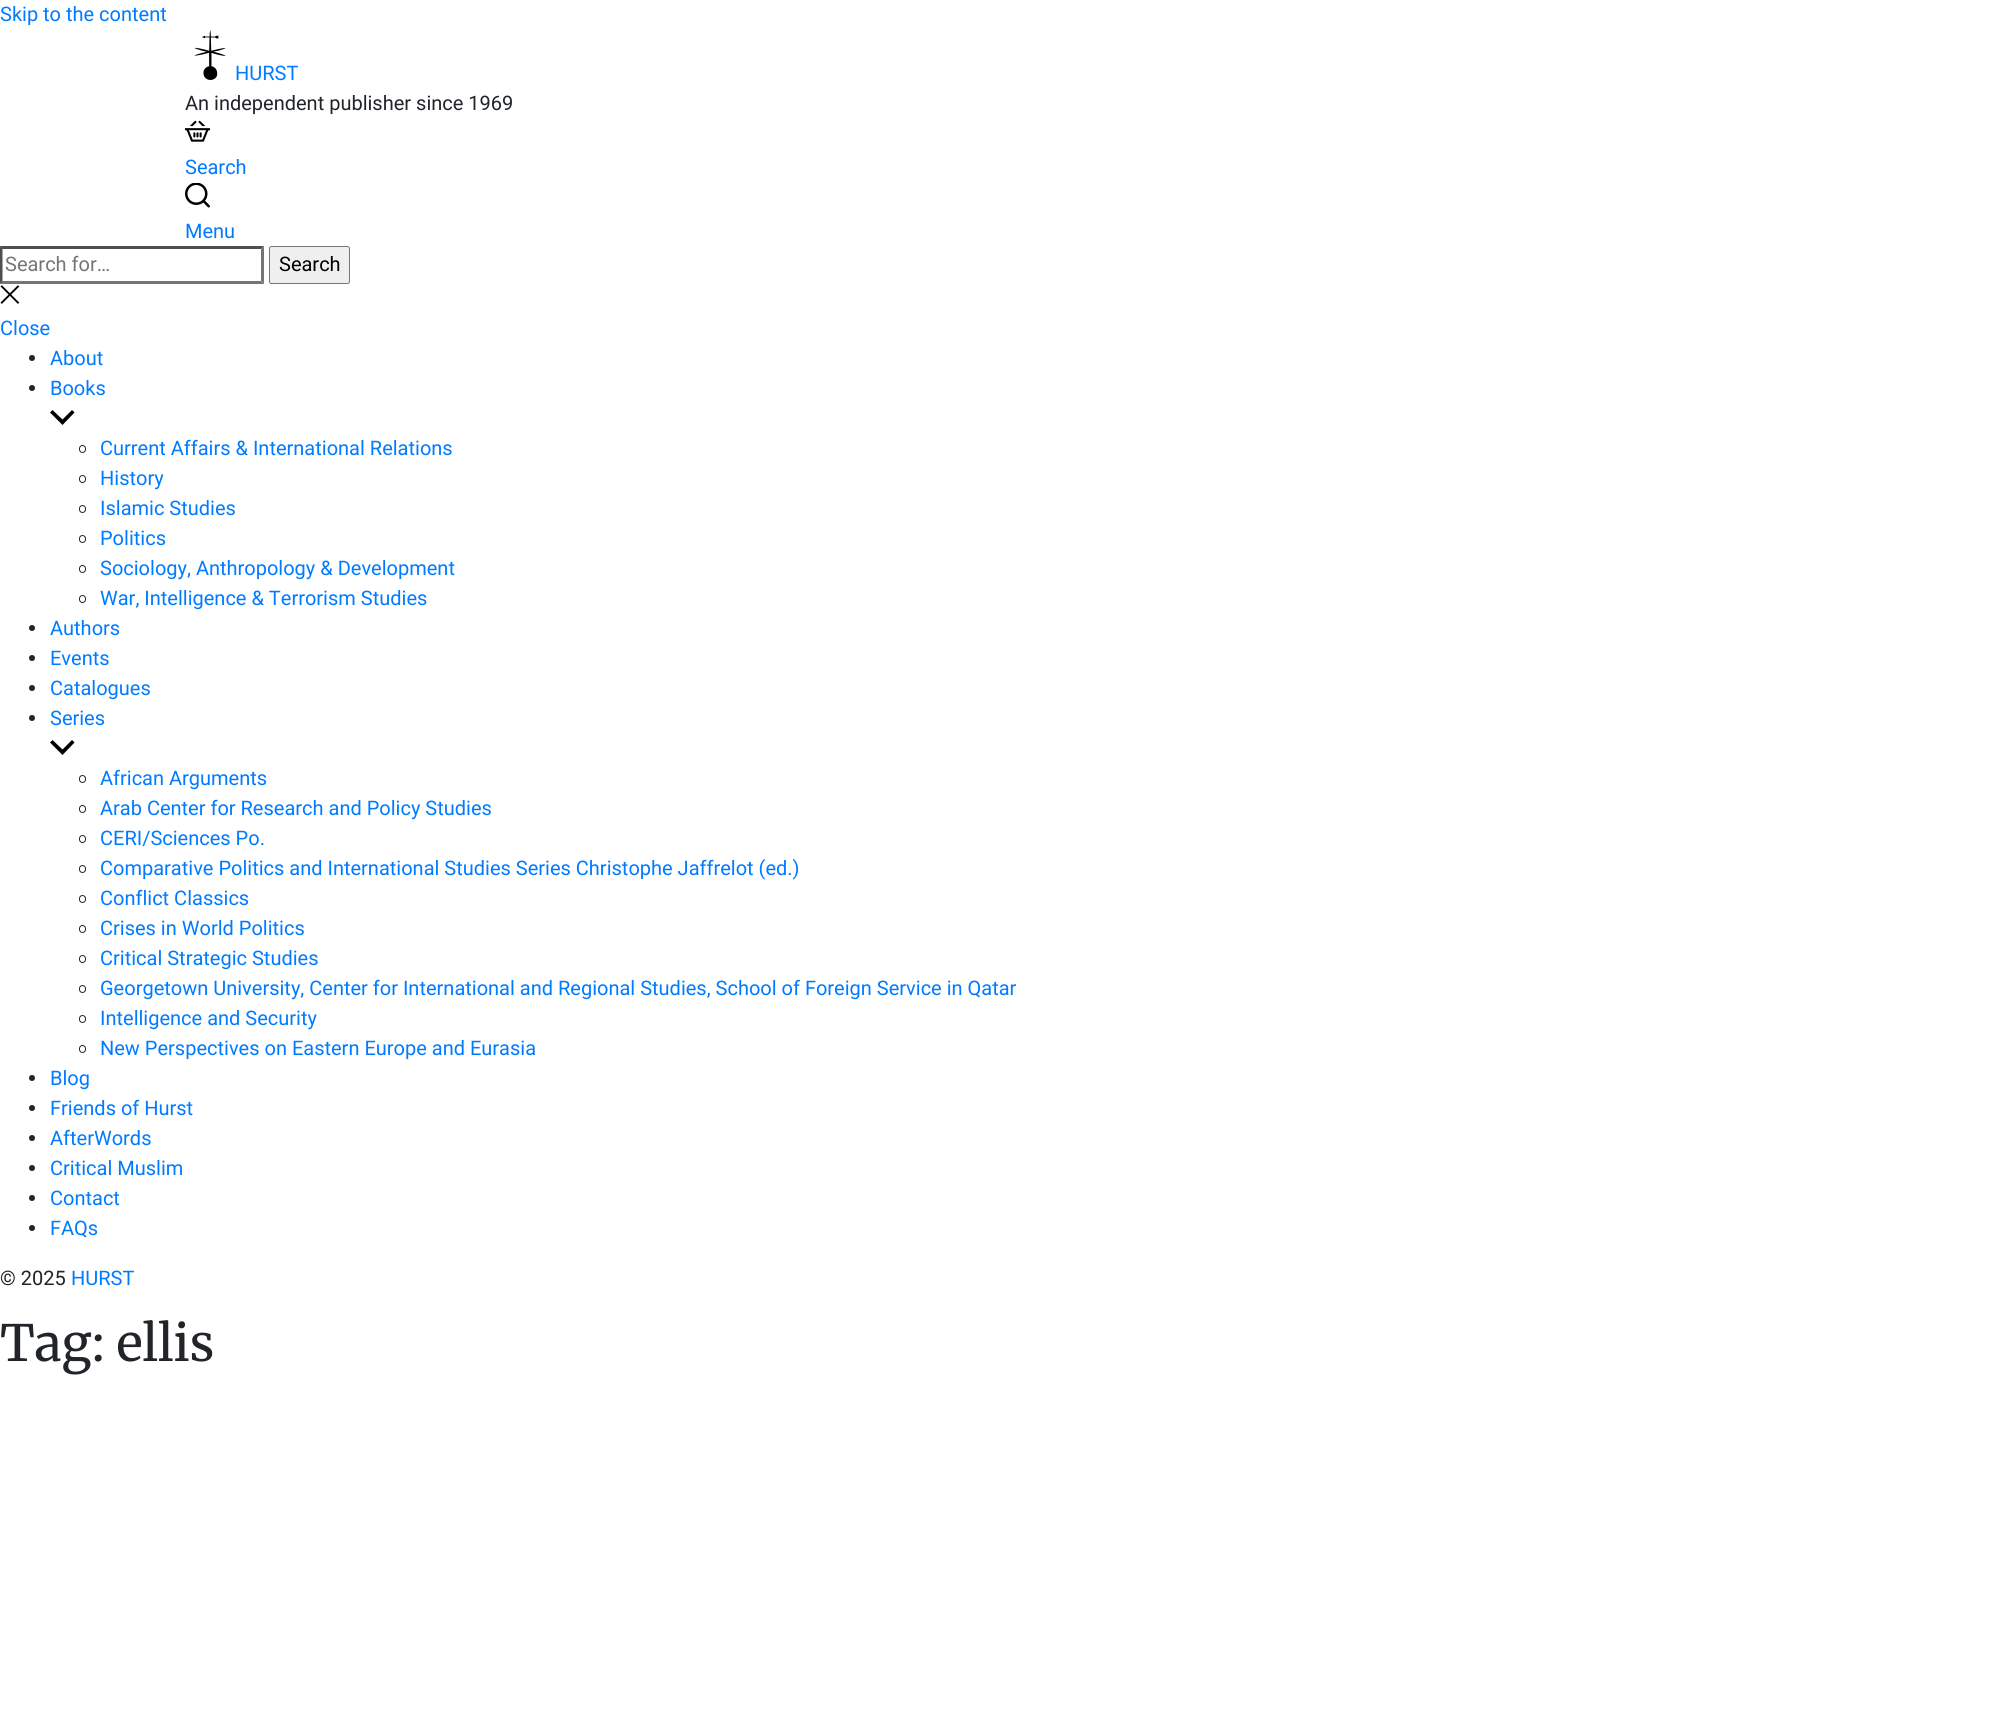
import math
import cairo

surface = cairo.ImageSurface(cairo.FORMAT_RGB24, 1997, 1721)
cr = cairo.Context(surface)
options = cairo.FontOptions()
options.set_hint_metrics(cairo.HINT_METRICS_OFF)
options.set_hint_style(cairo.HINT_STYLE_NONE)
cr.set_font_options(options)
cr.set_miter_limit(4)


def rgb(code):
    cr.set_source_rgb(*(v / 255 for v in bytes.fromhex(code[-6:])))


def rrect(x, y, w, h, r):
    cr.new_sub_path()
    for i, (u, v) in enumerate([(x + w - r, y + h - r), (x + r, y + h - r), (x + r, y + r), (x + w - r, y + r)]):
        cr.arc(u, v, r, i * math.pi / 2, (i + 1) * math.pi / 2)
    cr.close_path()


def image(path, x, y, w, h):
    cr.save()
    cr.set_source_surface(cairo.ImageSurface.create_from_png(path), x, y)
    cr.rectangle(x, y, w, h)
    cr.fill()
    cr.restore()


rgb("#ffffff")
cr.paint()
image("img/1.png", 194, 30, 32, 50)
image("img/2.png", 185, 120, 25, 22)
image("img/3.png", 185, 183, 25, 25)
rgb("#4f4f4f")
cr.new_path()
cr.move_to(0, 246)
cr.line_to(264, 246)
cr.line_to(261, 249)
cr.line_to(2, 249)
cr.close_path()
cr.fill()
rgb("#767676")
cr.new_path()
cr.move_to(264, 246)
cr.line_to(264, 284)
cr.line_to(261, 281)
cr.line_to(261, 249)
cr.close_path()
cr.fill()
cr.new_path()
cr.move_to(264, 284)
cr.line_to(0, 284)
cr.line_to(2, 281)
cr.line_to(261, 281)
cr.close_path()
cr.fill()
rgb("#4f4f4f")
cr.new_path()
cr.move_to(0, 284)
cr.line_to(0, 246)
cr.line_to(2.5, 249)
cr.line_to(2.5, 281)
cr.close_path()
cr.fill()
rgb("#efefef")
rrect(269.5, 246.5, 80, 37, 2)
cr.fill_preserve()
rgb("#767676")
cr.set_line_width(1)
cr.stroke()
image("img/4.png", 0, 285, 20, 19)
rgb("#212529")
cr.arc(32, 358, 3, 0, 2 * math.pi)
cr.fill()
cr.arc(32, 388, 3, 0, 2 * math.pi)
cr.fill()
rgb("#000000")
cr.set_fill_rule(cairo.FILL_RULE_EVEN_ODD)
cr.new_path()
cr.move_to(62.5, 419.5)
cr.line_to(72, 410)
cr.line_to(74.5, 412.5)
cr.line_to(62.5, 425)
cr.line_to(50, 412.5)
cr.line_to(52.5, 410)
cr.close_path()
cr.fill()
rrect(79.5, 445.5, 6, 7, 3)
rgb("#212529")
cr.stroke()
rrect(79.5, 475.5, 6, 7, 3)
cr.stroke()
rrect(79.5, 505.5, 6, 7, 3)
cr.stroke()
rrect(79.5, 535.5, 6, 7, 3)
cr.stroke()
rrect(79.5, 565.5, 6, 7, 3)
cr.stroke()
rrect(79.5, 595.5, 6, 7, 3)
cr.stroke()
cr.arc(32, 628, 3, 0, 2 * math.pi)
cr.fill()
cr.arc(32, 658, 3, 0, 2 * math.pi)
cr.fill()
cr.arc(32, 688, 3, 0, 2 * math.pi)
cr.fill()
cr.arc(32, 718, 3, 0, 2 * math.pi)
cr.fill()
rgb("#000000")
cr.new_path()
cr.move_to(62.5, 749.5)
cr.line_to(72, 740)
cr.line_to(74.5, 742.5)
cr.line_to(62.5, 755)
cr.line_to(50, 742.5)
cr.line_to(52.5, 740)
cr.close_path()
cr.fill()
rrect(79.5, 775.5, 6, 7, 3)
rgb("#212529")
cr.stroke()
rrect(79.5, 805.5, 6, 7, 3)
cr.stroke()
rrect(79.5, 835.5, 6, 7, 3)
cr.stroke()
rrect(79.5, 865.5, 6, 7, 3)
cr.stroke()
rrect(79.5, 895.5, 6, 7, 3)
cr.stroke()
rrect(79.5, 925.5, 6, 7, 3)
cr.stroke()
rrect(79.5, 955.5, 6, 7, 3)
cr.stroke()
rrect(79.5, 985.5, 6, 7, 3)
cr.stroke()
rrect(79.5, 1015.5, 6, 7, 3)
cr.stroke()
rrect(79.5, 1045.5, 6, 7, 3)
cr.stroke()
cr.arc(32, 1078, 3, 0, 2 * math.pi)
cr.fill()
cr.arc(32, 1108, 3, 0, 2 * math.pi)
cr.fill()
cr.arc(32, 1138, 3, 0, 2 * math.pi)
cr.fill()
cr.arc(32, 1168, 3, 0, 2 * math.pi)
cr.fill()
cr.arc(32, 1198, 3, 0, 2 * math.pi)
cr.fill()
cr.arc(32, 1228, 3, 0, 2 * math.pi)
cr.fill()
cr.select_font_face("Roboto")
cr.set_font_size(20)
rgb("#007bff")
cr.move_to(0, 21)
cr.show_text("Skip to the content")
cr.move_to(235, 80)
cr.show_text("HURST")
rgb("#212529")
cr.move_to(185, 110)
cr.show_text("An independent publisher since 1969")
rgb("#007bff")
cr.move_to(185, 174)
cr.show_text("Search")
cr.move_to(185, 238)
cr.show_text("Menu")
rgb("#757575")
cr.move_to(5, 271)
cr.show_text("Search for…")
rgb("#000000")
cr.move_to(279, 271)
cr.show_text("Search")
rgb("#007bff")
for x, y, s in [
    (0, 335, "Close"),
    (50, 365, "About"),
    (50, 395, "Books"),
    (100, 455, "Current Affairs & International Relations"),
    (100, 485, "History"),
    (100, 515, "Islamic Studies"),
    (100, 545, "Politics"),
    (100, 575, "Sociology, Anthropology & Development"),
    (100, 605, "War, Intelligence & Terrorism Studies"),
    (50, 635, "Authors"),
    (50, 665, "Events"),
    (50, 695, "Catalogues"),
    (50, 725, "Series"),
    (100, 785, "African Arguments"),
    (100, 815, "Arab Center for Research and Policy Studies"),
    (100, 845, "CERI/Sciences Po."),
    (100, 875, "Comparative Politics and International Studies Series Christophe Jaffrelot (ed.)"),
    (100, 905, "Conflict Classics"),
    (100, 935, "Crises in World Politics"),
    (100, 965, "Critical Strategic Studies"),
    (100, 995, "Georgetown University, Center for International and Regional Studies, School of Foreign Service in Qatar"),
    (100, 1025, "Intelligence and Security"),
    (100, 1055, "New Perspectives on Eastern Europe and Eurasia"),
    (50, 1085, "Blog"),
    (50, 1115, "Friends of Hurst"),
    (50, 1145, "AfterWords"),
    (50, 1175, "Critical Muslim"),
    (50, 1205, "Contact"),
    (50, 1235, "FAQs"),
]:
    cr.move_to(x, y)
    cr.show_text(s)
rgb("#212529")
cr.move_to(0, 1285)
cr.show_text("© 2025")
rgb("#007bff")
cr.move_to(71, 1285)
cr.show_text("HURST")
cr.select_font_face("Merriweather")
cr.set_font_size(50)
rgb("#212529")
cr.move_to(0, 1361)
cr.show_text("Tag: ellis")
surface.write_to_png("page.png")
